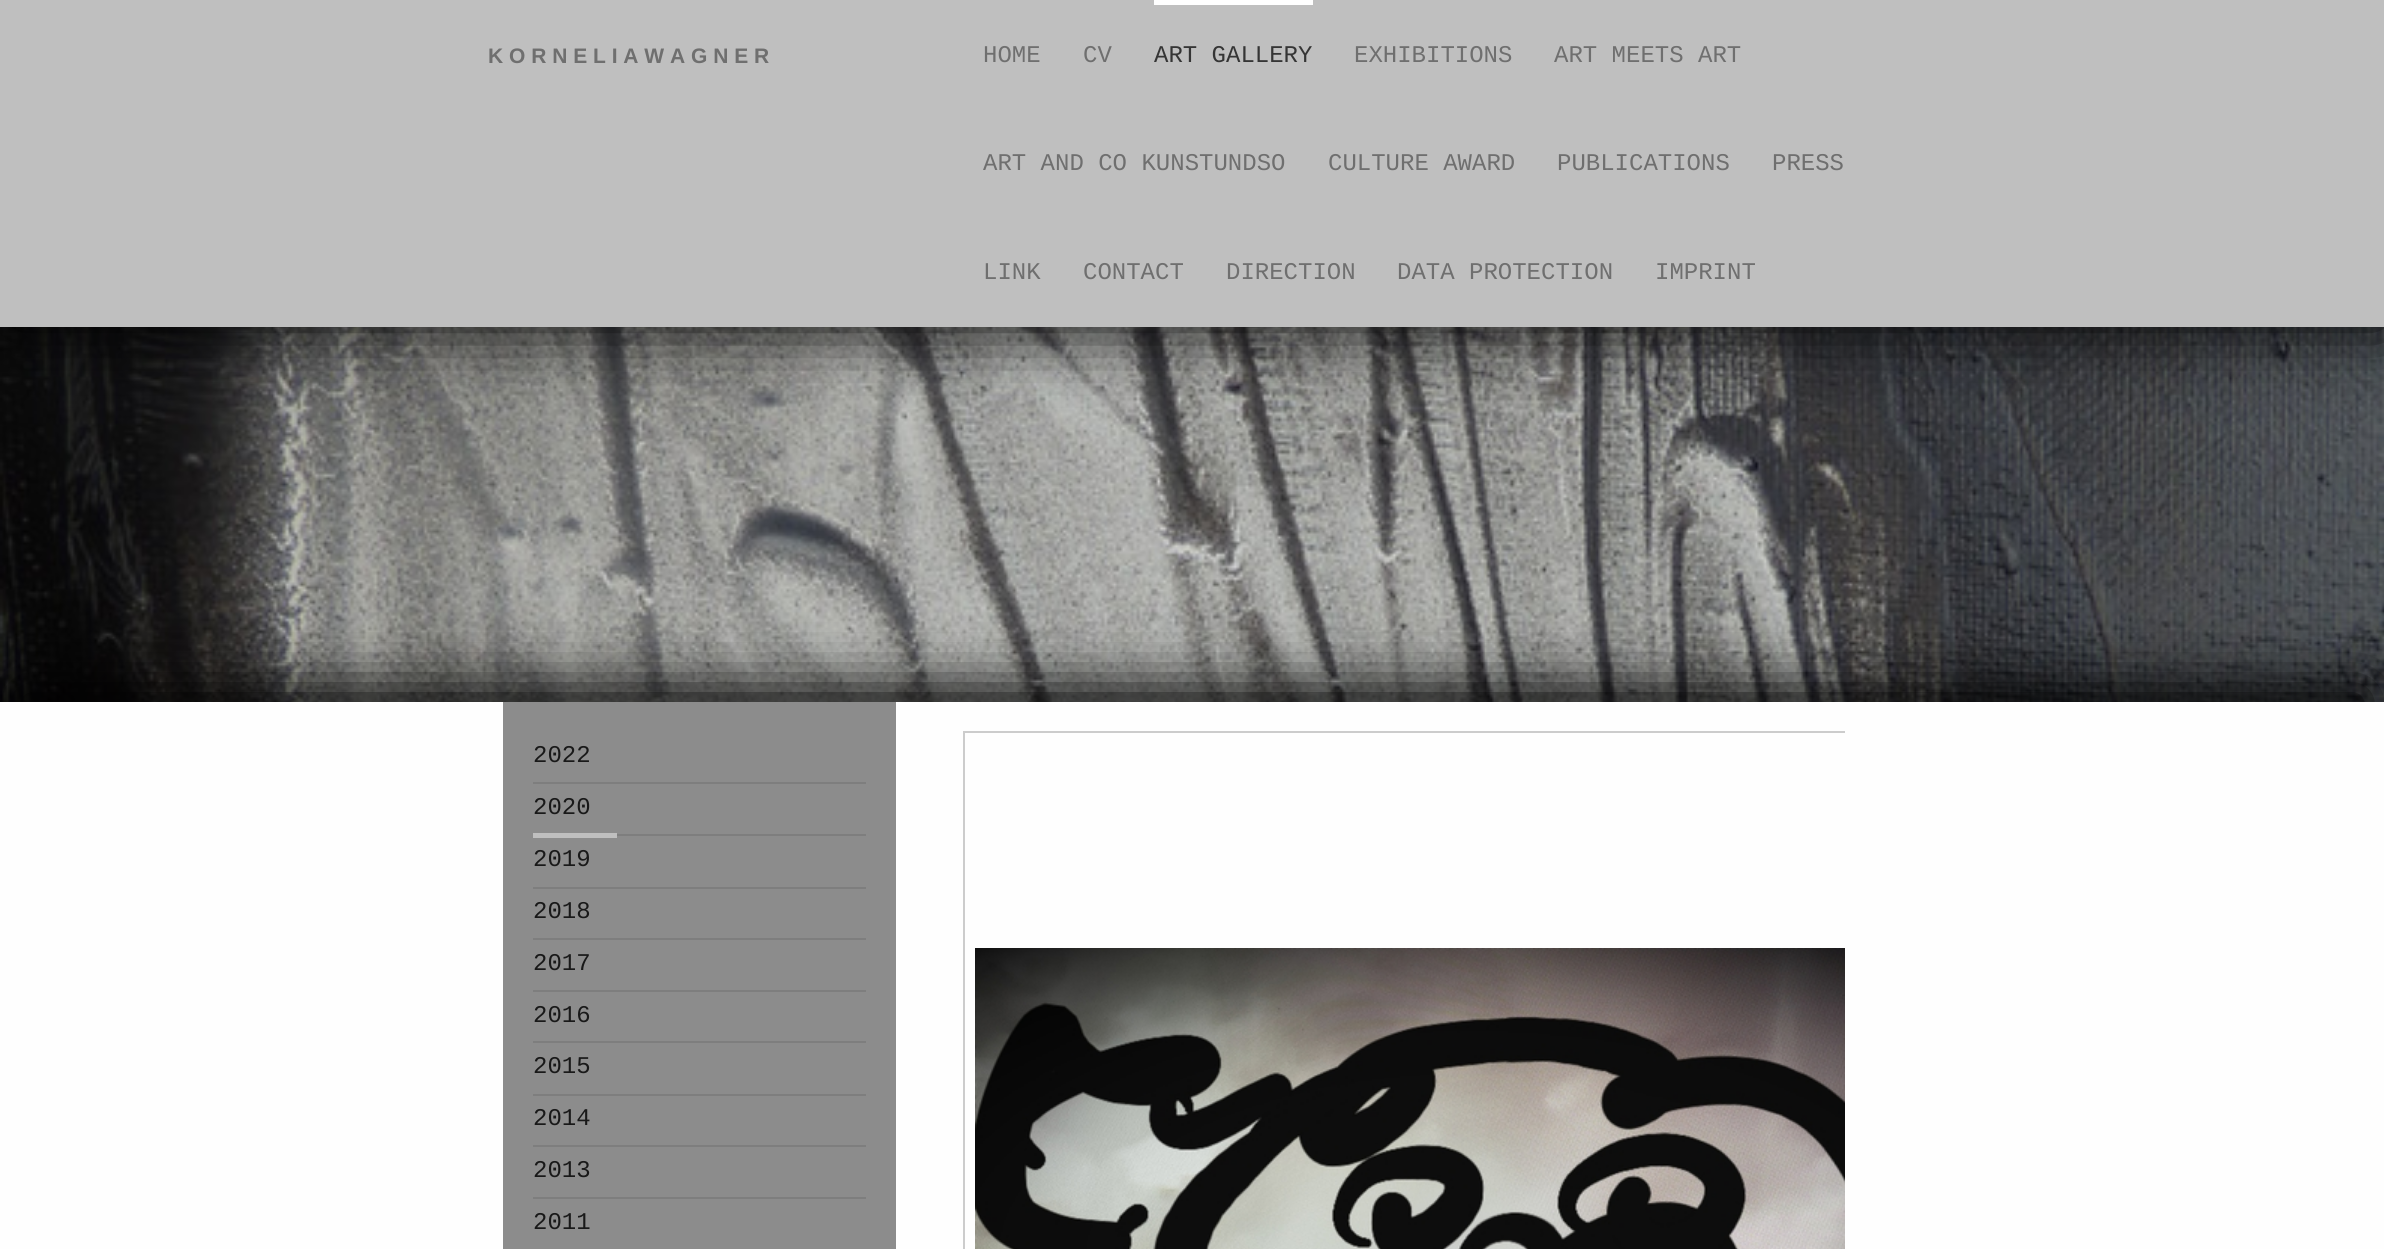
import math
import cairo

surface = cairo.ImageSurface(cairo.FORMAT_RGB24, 2384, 1249)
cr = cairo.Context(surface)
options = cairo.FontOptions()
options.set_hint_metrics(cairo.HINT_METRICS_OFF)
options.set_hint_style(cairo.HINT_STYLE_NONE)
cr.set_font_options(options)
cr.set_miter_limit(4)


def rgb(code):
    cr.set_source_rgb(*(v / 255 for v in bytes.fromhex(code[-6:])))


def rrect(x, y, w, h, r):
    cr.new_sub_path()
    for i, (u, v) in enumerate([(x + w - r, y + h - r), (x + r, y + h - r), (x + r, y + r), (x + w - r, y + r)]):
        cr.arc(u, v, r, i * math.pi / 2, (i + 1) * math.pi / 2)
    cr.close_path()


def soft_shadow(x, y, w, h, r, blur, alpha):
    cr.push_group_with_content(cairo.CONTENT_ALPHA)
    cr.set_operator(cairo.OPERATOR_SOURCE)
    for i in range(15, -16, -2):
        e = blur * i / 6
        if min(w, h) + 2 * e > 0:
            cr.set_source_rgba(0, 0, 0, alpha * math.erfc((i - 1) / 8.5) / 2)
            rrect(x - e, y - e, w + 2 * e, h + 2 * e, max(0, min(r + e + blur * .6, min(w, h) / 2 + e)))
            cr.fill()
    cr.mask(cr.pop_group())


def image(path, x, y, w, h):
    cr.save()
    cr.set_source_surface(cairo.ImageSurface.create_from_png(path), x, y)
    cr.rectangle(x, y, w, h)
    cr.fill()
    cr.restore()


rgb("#ffffff")
cr.paint()
image("img/1.png", 0, 327, 2384, 375)
rgb("#000000")
soft_shadow(6, 0, 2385, 327, 0, 37.5, 1)
rgb("#bfbfbf")
cr.rectangle(0, 0, 2384, 327)
cr.fill()
rgb("#fefefe")
cr.rectangle(1154, 0, 159, 5)
cr.fill()
rgb("#000000")
soft_shadow(15, 687, 2355, 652, 0, 30, 1)
rgb("#fefefe")
cr.rectangle(0, 702, 2384, 547)
cr.fill()
rgb("#8c8c8c")
cr.rectangle(503, 702, 393, 547)
cr.fill()
cr.save()
cr.rectangle(963, 731, 882, 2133)
cr.clip()
cr.rectangle(964, 732, 1057, 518)
rgb("#cccccc")
cr.stroke()
cr.restore()
image("img/2.png", 975, 948, 870, 301)
for x, y, w, h, color in [
    (533, 782, 333, 2, "#7e7e7e"),
    (617, 834, 249, 2, "#7e7e7e"),
    (533, 833, 84, 5, "#bfbfbf"),
    (533, 887, 333, 2, "#7e7e7e"),
    (533, 938, 333, 2, "#7e7e7e"),
    (533, 990, 333, 2, "#7e7e7e"),
    (533, 1041, 333, 2, "#7e7e7e"),
    (533, 1094, 333, 2, "#7e7e7e"),
    (533, 1145, 333, 2, "#7e7e7e"),
    (533, 1197, 333, 2, "#7e7e7e"),
]:
    rgb(color)
    cr.rectangle(x, y, w, h)
    cr.fill()
cr.select_font_face("Liberation Sans", cairo.FONT_SLANT_NORMAL, cairo.FONT_WEIGHT_BOLD)
cr.set_font_size(21)
rgb("#6f6f6f")
cr.move_to(488, 63)
cr.show_text("K O R N E L I A W A G N E R")
cr.select_font_face("Liberation Mono")
cr.set_font_size(24)
cr.move_to(983, 62)
cr.show_text("HOME")
cr.move_to(1083, 62)
cr.show_text("CV")
rgb("#353535")
cr.move_to(1154, 62)
cr.show_text("ART GALLERY")
rgb("#6f6f6f")
for x, y, s in [
    (1354, 62, "EXHIBITIONS"),
    (1554, 62, "ART MEETS ART"),
    (983, 170, "ART AND CO KUNSTUNDSO"),
    (1328, 170, "CULTURE AWARD"),
    (1557, 170, "PUBLICATIONS"),
    (1772, 170, "PRESS"),
    (983, 279, "LINK"),
    (1083, 279, "CONTACT"),
    (1226, 279, "DIRECTION"),
    (1397, 279, "DATA PROTECTION"),
    (1655, 279, "IMPRINT"),
]:
    cr.move_to(x, y)
    cr.show_text(s)
rgb("#191919")
for x, y, s in [
    (533, 762, "2022"),
    (533, 814, "2020"),
    (533, 866, "2019"),
    (533, 918, "2018"),
    (533, 970, "2017"),
    (533, 1022, "2016"),
    (533, 1073, "2015"),
    (533, 1125, "2014"),
    (533, 1177, "2013"),
    (533, 1229, "2011"),
]:
    cr.move_to(x, y)
    cr.show_text(s)
surface.write_to_png("page.png")
